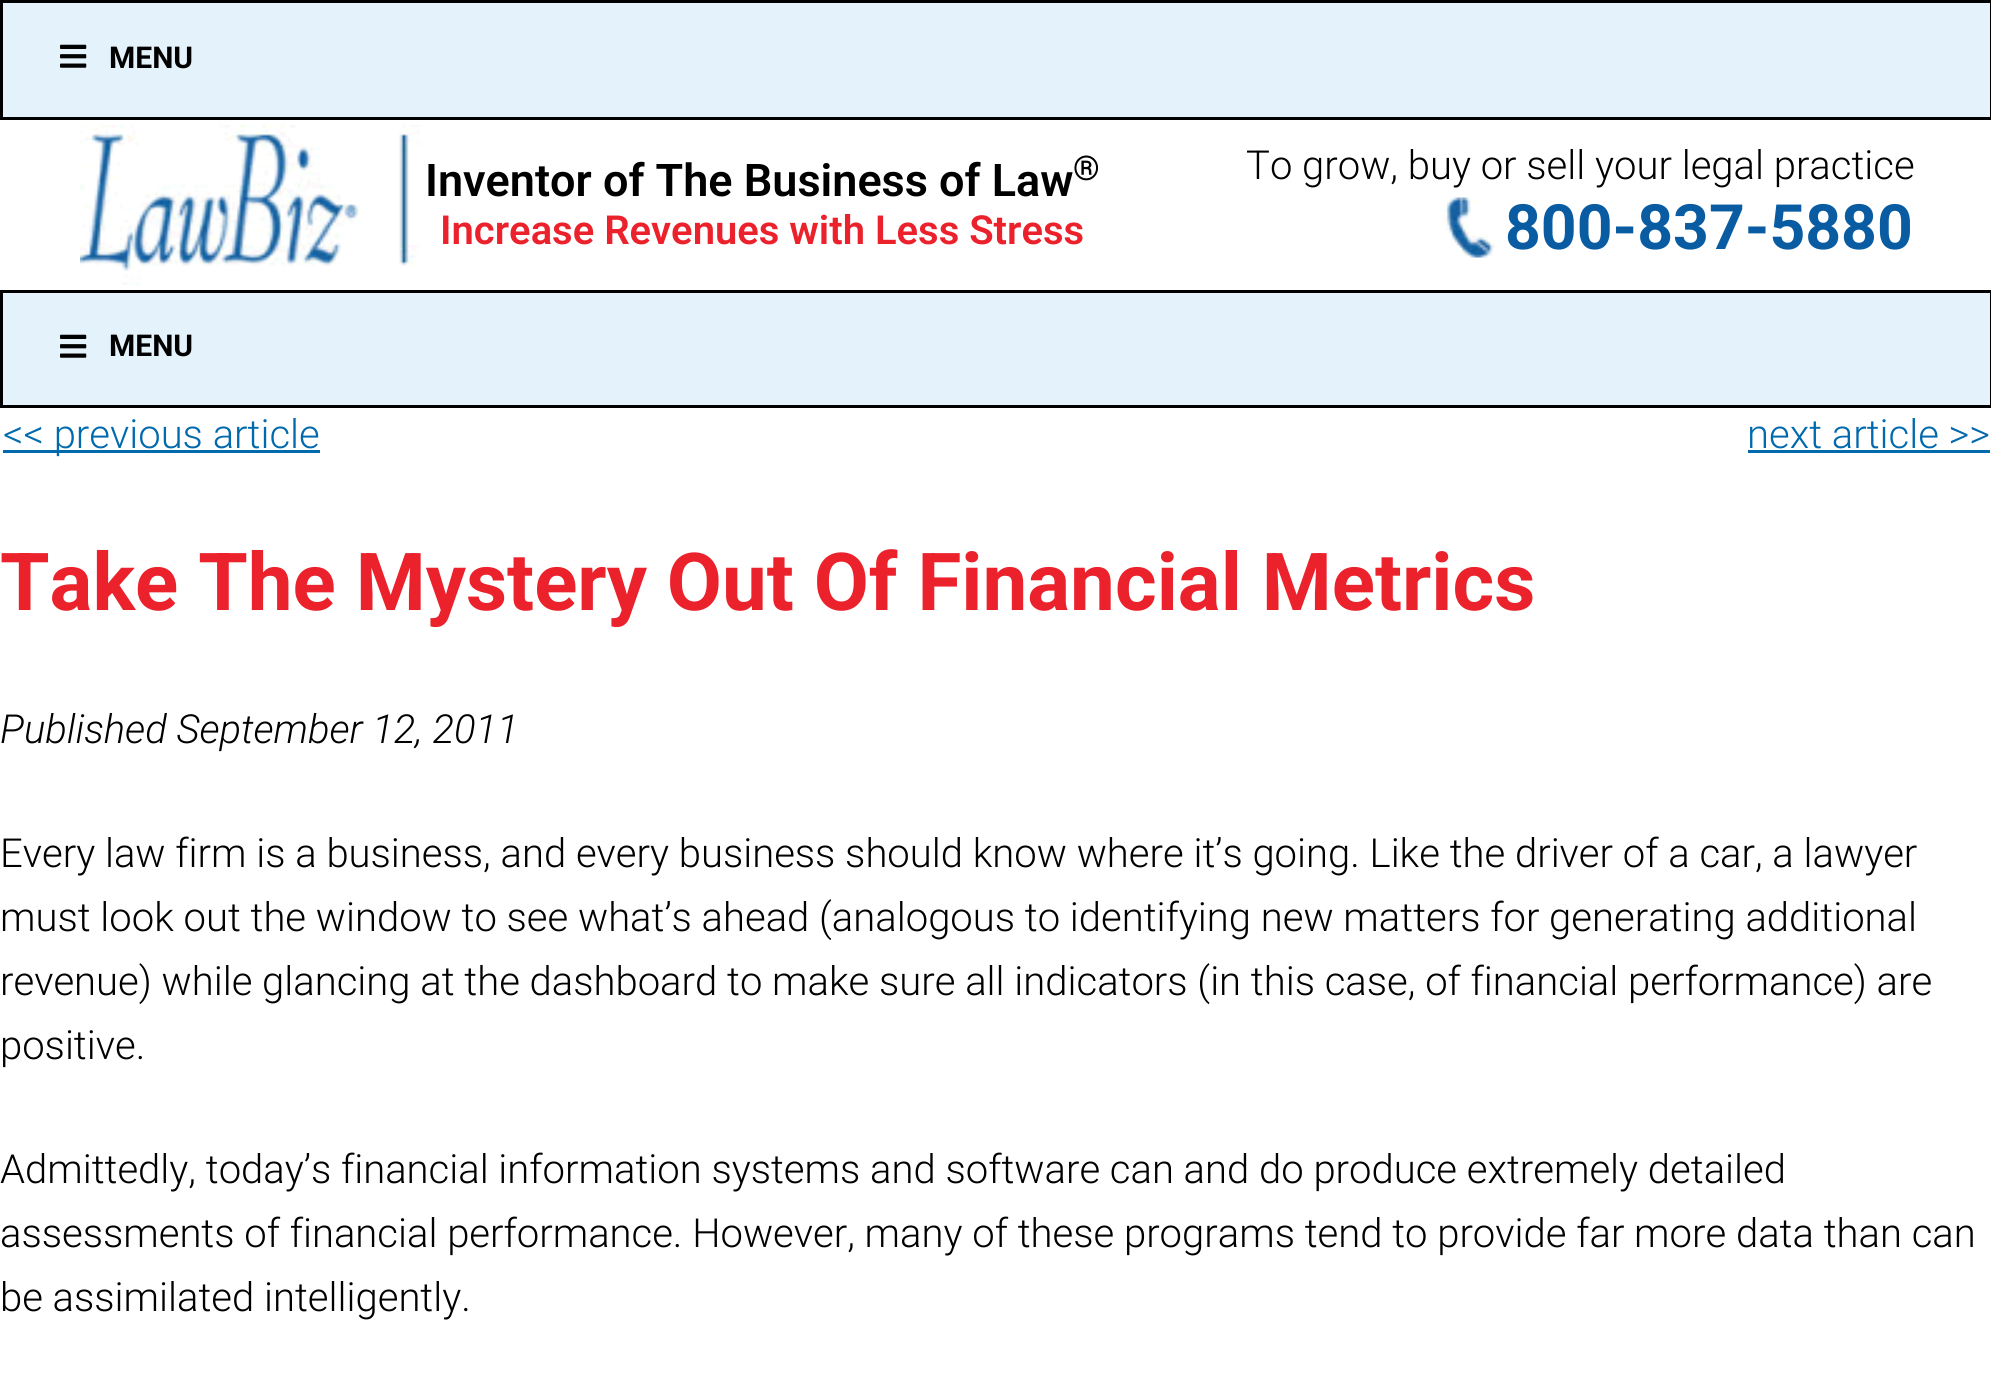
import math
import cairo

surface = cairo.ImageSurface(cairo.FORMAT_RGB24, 1991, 1387)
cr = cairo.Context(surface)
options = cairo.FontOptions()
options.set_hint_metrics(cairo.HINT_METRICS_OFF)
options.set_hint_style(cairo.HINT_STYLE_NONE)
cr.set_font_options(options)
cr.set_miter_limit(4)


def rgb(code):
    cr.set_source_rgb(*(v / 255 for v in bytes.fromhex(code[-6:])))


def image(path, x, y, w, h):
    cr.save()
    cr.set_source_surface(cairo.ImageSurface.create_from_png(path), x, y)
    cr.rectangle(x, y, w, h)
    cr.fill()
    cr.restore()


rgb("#ffffff")
cr.paint()
rgb("#e4f2fc")
cr.rectangle(5, 5, 1985, 112)
cr.fill()
cr.save()
cr.rectangle(3, 3, 1987, 115)
cr.clip()
rgb("#e7f3fc")
cr.set_fill_rule(cairo.FILL_RULE_EVEN_ODD)
cr.new_path()
cr.move_to(-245, -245)
cr.line_to(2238, -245)
cr.line_to(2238, 365)
cr.line_to(-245, 365)
cr.close_path()
cr.move_to(5, 5)
cr.line_to(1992, 5)
cr.line_to(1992, 120)
cr.line_to(5, 120)
cr.close_path()
cr.fill()
cr.restore()
cr.rectangle(1.5, 1.5, 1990, 117)
rgb("#000000")
cr.set_line_width(3)
cr.stroke()
image("img/1.png", 60, 44, 27, 24)
image("img/2.png", 80, 125, 340, 160)
image("img/3.png", 1443, 197, 53, 61)
rgb("#e4f2fc")
cr.rectangle(5, 295, 1985, 110)
cr.fill()
cr.save()
cr.rectangle(3, 293, 1987, 112)
cr.clip()
rgb("#e7f3fc")
cr.set_fill_rule(cairo.FILL_RULE_EVEN_ODD)
cr.new_path()
cr.move_to(-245, 45)
cr.line_to(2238, 45)
cr.line_to(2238, 652)
cr.line_to(-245, 652)
cr.close_path()
cr.move_to(5, 295)
cr.line_to(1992, 295)
cr.line_to(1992, 408)
cr.line_to(5, 408)
cr.close_path()
cr.fill()
cr.restore()
cr.rectangle(1.5, 291.5, 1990, 115)
rgb("#000000")
cr.stroke()
image("img/4.png", 60, 334, 27, 24)
rgb("#0169ad")
cr.rectangle(3, 450, 317, 3)
cr.fill()
cr.rectangle(1748, 450, 242, 3)
cr.fill()
cr.select_font_face("Roboto", cairo.FONT_SLANT_NORMAL, cairo.FONT_WEIGHT_BOLD)
cr.set_font_size(30)
rgb("#000000")
cr.move_to(109, 68)
cr.show_text("MENU")
cr.select_font_face("Roboto SemiBold")
cr.set_font_size(45)
cr.move_to(425, 196)
cr.show_text("Inventor of The Business of Law")
cr.set_font_size(34)
cr.move_to(1073, 180)
cr.show_text("®")
cr.set_font_size(40)
rgb("#eb212c")
cr.move_to(440, 244)
cr.show_text("Increase Revenues with Less Stress")
cr.select_font_face("Roboto Light")
rgb("#000000")
cr.move_to(1246, 179)
cr.show_text("To grow, buy or sell your legal practice")
cr.select_font_face("Roboto", cairo.FONT_SLANT_NORMAL, cairo.FONT_WEIGHT_BOLD)
cr.set_font_size(62.5)
rgb("#095ca2")
cr.move_to(1505, 249)
cr.show_text("800-837-5880")
cr.set_font_size(30)
rgb("#000000")
cr.move_to(109, 356)
cr.show_text("MENU")
cr.select_font_face("Roboto Light")
cr.set_font_size(40)
rgb("#0169ad")
cr.move_to(3, 448)
cr.show_text("<< previous article")
cr.move_to(1747, 448)
cr.show_text("next article >>")
cr.select_font_face("Roboto", cairo.FONT_SLANT_NORMAL, cairo.FONT_WEIGHT_BOLD)
cr.set_font_size(80)
rgb("#eb212c")
cr.move_to(0, 610)
cr.show_text("Take The Mystery Out Of Financial Metrics")
cr.select_font_face("Roboto Light", cairo.FONT_SLANT_ITALIC)
cr.set_font_size(40)
rgb("#000000")
cr.move_to(0, 743)
cr.show_text("Published September 12, 2011")
cr.select_font_face("Roboto Light")
for x, y, s in [
    (0, 867, "Every law firm is a business, and every business should know where it’s going. Like the driver of a car, a lawyer"),
    (0, 931, "must look out the window to see what’s ahead (analogous to identifying new matters for generating additional"),
    (0, 995, "revenue) while glancing at the dashboard to make sure all indicators (in this case, of financial performance) are"),
    (0, 1059, "positive."),
    (0, 1183, "Admittedly, today’s financial information systems and software can and do produce extremely detailed"),
    (0, 1247, "assessments of financial performance. However, many of these programs tend to provide far more data than can"),
    (0, 1311, "be assimilated intelligently."),
]:
    cr.move_to(x, y)
    cr.show_text(s)
surface.write_to_png("page.png")
